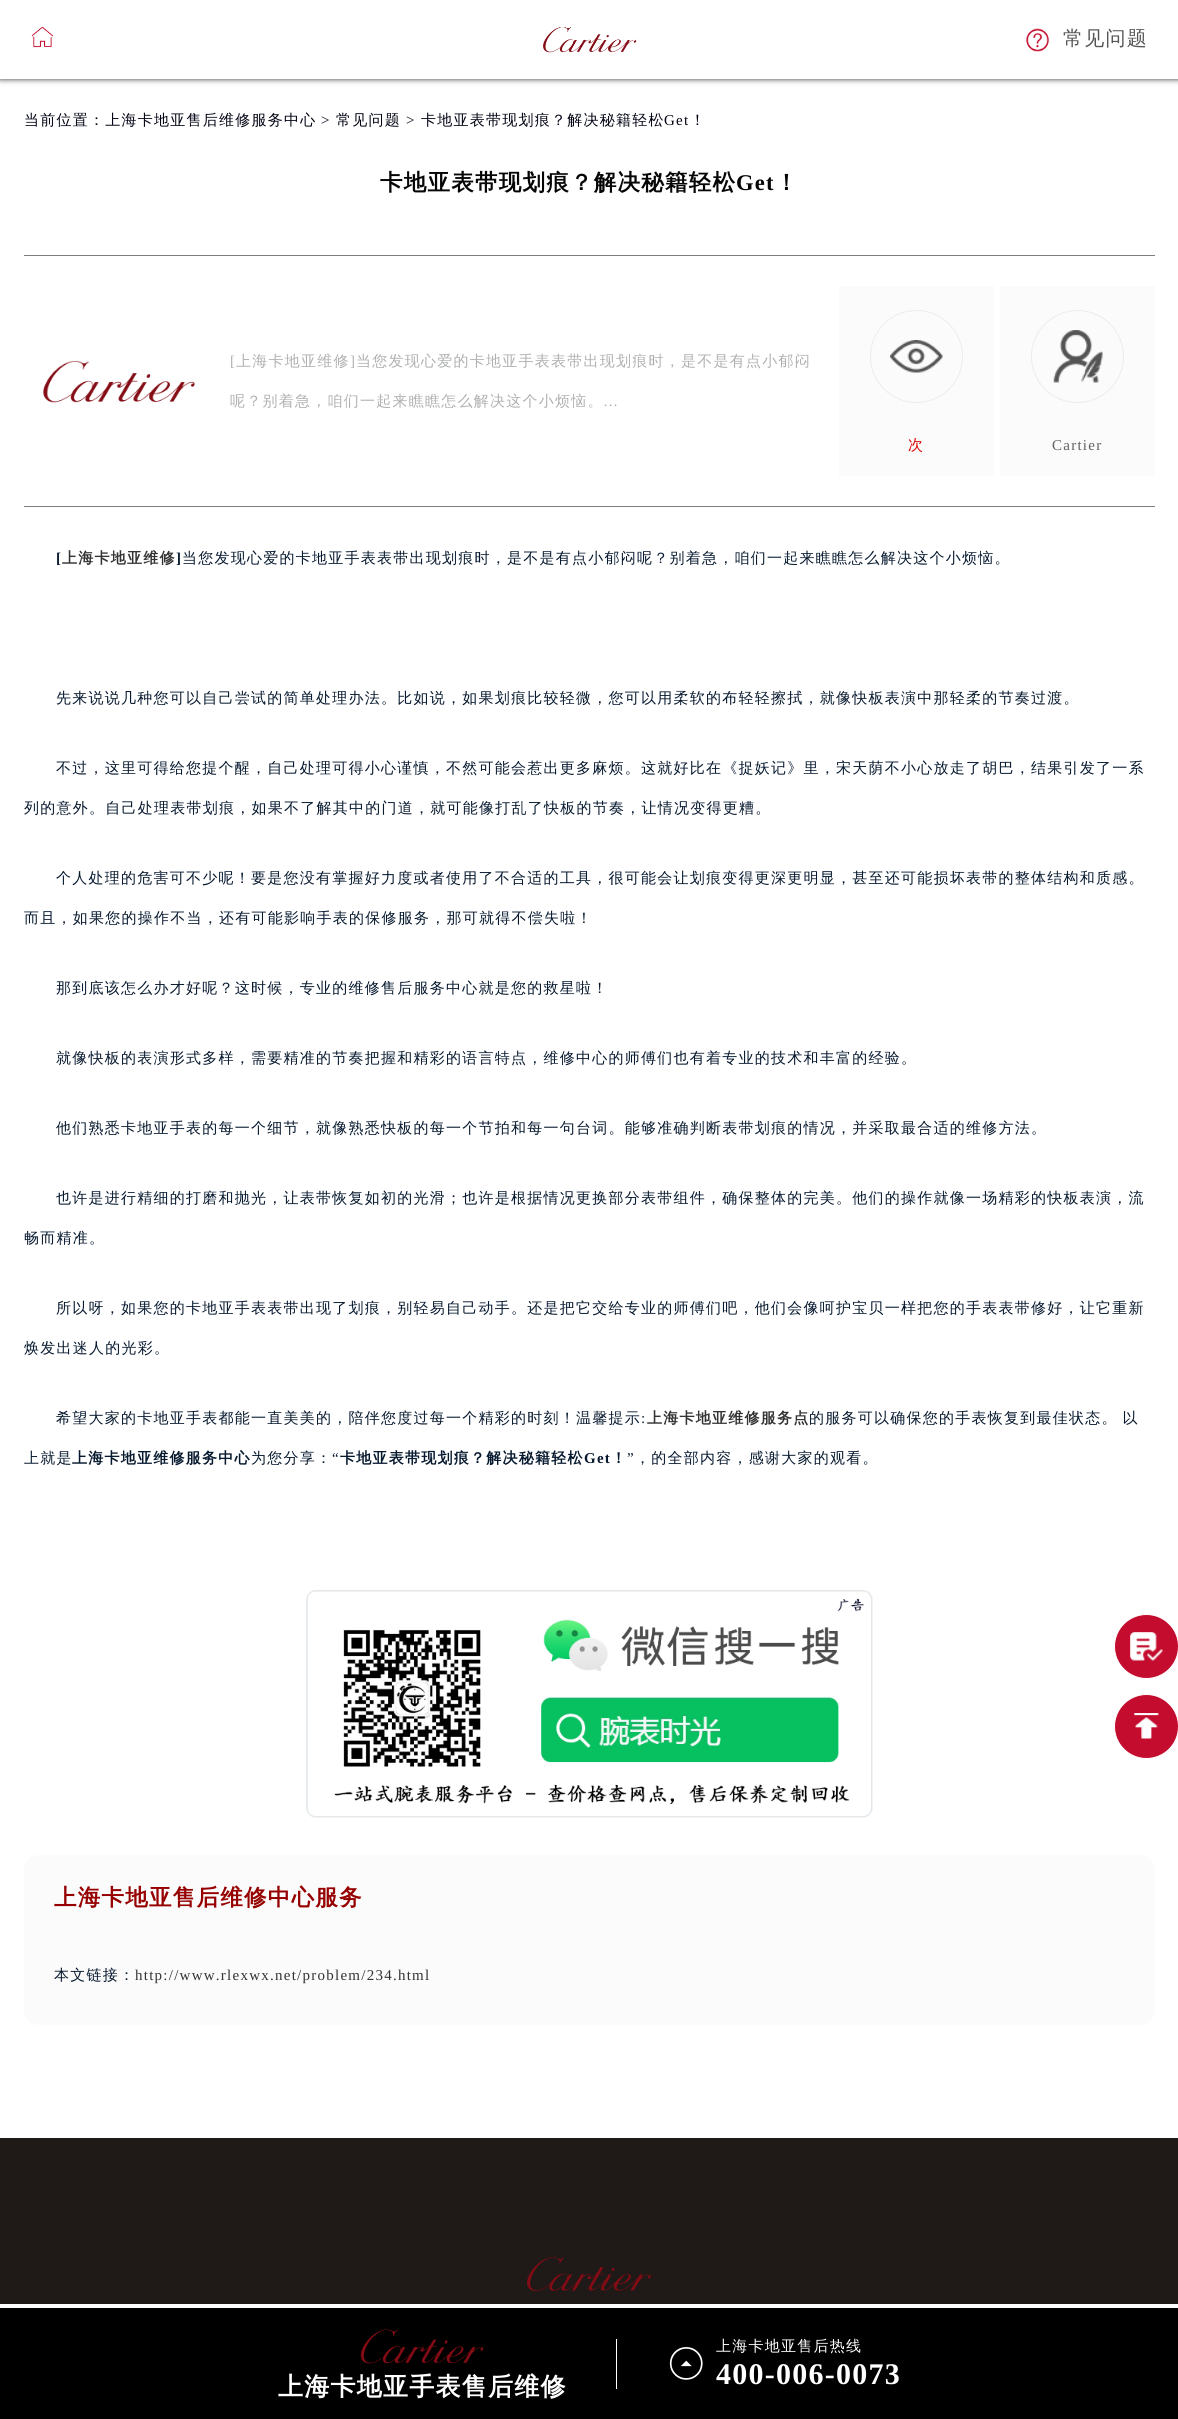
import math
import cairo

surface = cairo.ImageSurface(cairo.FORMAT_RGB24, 1178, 2419)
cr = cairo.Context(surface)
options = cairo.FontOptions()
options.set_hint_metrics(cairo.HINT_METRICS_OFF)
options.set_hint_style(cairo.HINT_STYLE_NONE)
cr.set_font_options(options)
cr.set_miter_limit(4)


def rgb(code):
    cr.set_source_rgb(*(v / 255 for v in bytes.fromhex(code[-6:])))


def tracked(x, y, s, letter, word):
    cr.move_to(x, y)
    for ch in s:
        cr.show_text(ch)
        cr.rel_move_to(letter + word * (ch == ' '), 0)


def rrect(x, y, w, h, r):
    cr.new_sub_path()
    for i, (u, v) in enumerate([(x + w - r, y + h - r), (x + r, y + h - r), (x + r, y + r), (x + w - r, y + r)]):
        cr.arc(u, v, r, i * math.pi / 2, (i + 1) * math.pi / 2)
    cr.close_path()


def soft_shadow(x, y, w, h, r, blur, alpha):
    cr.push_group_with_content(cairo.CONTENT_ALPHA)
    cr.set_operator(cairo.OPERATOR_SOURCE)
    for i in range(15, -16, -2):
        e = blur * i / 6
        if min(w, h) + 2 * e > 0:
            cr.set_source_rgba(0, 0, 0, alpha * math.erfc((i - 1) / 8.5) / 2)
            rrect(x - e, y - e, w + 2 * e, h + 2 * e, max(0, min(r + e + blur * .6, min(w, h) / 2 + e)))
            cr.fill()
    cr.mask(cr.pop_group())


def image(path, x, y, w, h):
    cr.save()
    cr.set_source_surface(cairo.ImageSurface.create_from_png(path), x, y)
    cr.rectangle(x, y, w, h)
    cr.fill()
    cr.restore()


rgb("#ffffff")
cr.paint()
rgb("#333333")
soft_shadow(0, 0, 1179, 79, 0, 3, 1)
rgb("#ffffff")
cr.rectangle(0, 0, 1178, 79)
cr.fill()
image("img/1.png", 31, 26, 22, 22)
image("img/2.png", 543, 27, 94, 26)
image("img/3.png", 1026, 28, 23, 24)
rgb("#7d7d7d")
cr.rectangle(24, 255, 1131, 1)
cr.fill()
cr.rectangle(24, 506, 1131, 1)
cr.fill()
image("img/4.png", 43, 360, 152, 43)
rgb("#fbfbfb")
cr.rectangle(839, 286, 155, 190)
cr.fill()
cr.arc(916.5, 356.5, 46, 0, 2 * math.pi)
rgb("#ececec")
cr.set_line_width(1)
cr.stroke()
image("img/5.png", 890, 340, 53, 33)
rgb("#fbfbfb")
cr.rectangle(1000, 286, 155, 190)
cr.fill()
cr.arc(1077.5, 356.5, 46, 0, 2 * math.pi)
rgb("#ececec")
cr.stroke()
image("img/6.png", 1053, 330, 50, 53)
image("img/7.png", 306, 1590, 567, 228)
rgb("#fbfbfb")
rrect(24, 1855, 1131, 170, 15)
cr.fill()
rgb("#c40d2e")
cr.arc(1146.5, 1646.5, 32, 0, 2 * math.pi)
cr.fill_preserve()
rgb("#ffffff")
cr.stroke()
image("img/8.png", 1130, 1632, 33, 29)
rgb("#c40d2e")
cr.arc(1146.5, 1726.5, 32, 0, 2 * math.pi)
cr.fill_preserve()
rgb("#ffffff")
cr.stroke()
image("img/9.png", 1134, 1713, 25, 26)
rgb("#1f1918")
cr.rectangle(0, 2138, 1178, 166)
cr.fill()
image("img/10.png", 527, 2257, 125, 35)
rgb("#000000")
cr.rectangle(0, 2308, 1178, 111)
cr.fill()
image("img/11.png", 360, 2329, 124, 35)
rgb("#ffffff")
cr.rectangle(616, 2339, 1, 50)
cr.fill()
image("img/12.png", 669, 2347, 34, 33)
cr.select_font_face("WenQuanYi Zen Hei Medium")
cr.set_font_size(20)
rgb("#555555")
tracked(1063, 45, "常见问题", 1.25, 0)
cr.set_font_size(15)
rgb("#020414")
tracked(24, 125, "当前位置：上海卡地亚售后维修服务中心", 1.25, 0)
cr.select_font_face("Liberation Serif")
tracked(321, 125, ">", 1.25, 0)
cr.select_font_face("WenQuanYi Zen Hei Medium")
tracked(336, 125, "常见问题", 1.25, 0)
cr.select_font_face("Liberation Serif")
tracked(406, 125, ">", 1.25, 0)
cr.select_font_face("WenQuanYi Zen Hei Medium")
tracked(421, 125, "卡地亚表带现划痕？解决秘籍轻松", 1.25, 0)
cr.select_font_face("Liberation Serif")
tracked(664, 125, "Get", 1.25, 0)
cr.select_font_face("WenQuanYi Zen Hei Medium")
tracked(690, 125, "！", 1.25, 0)
cr.select_font_face("WenQuanYi Zen Hei", cairo.FONT_SLANT_NORMAL, cairo.FONT_WEIGHT_BOLD)
cr.set_font_size(22.5)
rgb("#060606")
tracked(380, 190, "卡地亚表带现划痕？解决秘籍轻松", 1.25, 0)
cr.select_font_face("Liberation Serif", cairo.FONT_SLANT_NORMAL, cairo.FONT_WEIGHT_BOLD)
tracked(736, 190, "Get", 1.25, 0)
cr.select_font_face("WenQuanYi Zen Hei", cairo.FONT_SLANT_NORMAL, cairo.FONT_WEIGHT_BOLD)
tracked(775, 190, "！", 1.25, 0)
cr.select_font_face("Liberation Serif")
cr.set_font_size(15)
rgb("#afb0b1")
tracked(230, 366, "[", 1.25, 0)
cr.select_font_face("WenQuanYi Zen Hei Medium")
tracked(236, 366, "上海卡地亚维修", 1.25, 0)
cr.select_font_face("Liberation Serif")
tracked(350, 366, "]", 1.25, 0)
cr.select_font_face("WenQuanYi Zen Hei Medium")
tracked(356, 366, "当您发现心爱的卡地亚手表表带出现划痕时，是不是有点小郁闷", 1.25, 0)
tracked(230, 406, "呢？别着急，咱们一起来瞧瞧怎么解决这个小烦恼。", 1.25, 0)
cr.select_font_face("Liberation Serif")
tracked(603, 406, "…", 1.25, 0)
cr.select_font_face("WenQuanYi Zen Hei Medium")
rgb("#de0000")
tracked(908, 450, "次", 1.25, 0)
cr.select_font_face("Liberation Serif")
rgb("#616161")
tracked(1052, 450, "Cartier", 1.25, 0)
cr.select_font_face("Liberation Serif", cairo.FONT_SLANT_NORMAL, cairo.FONT_WEIGHT_BOLD)
rgb("#07192f")
tracked(56, 563, "[", 1.25, 0)
cr.select_font_face("WenQuanYi Zen Hei", cairo.FONT_SLANT_NORMAL, cairo.FONT_WEIGHT_BOLD)
rgb("#333333")
tracked(62, 563, "上海卡地亚维修", 1.25, 0)
cr.select_font_face("Liberation Serif", cairo.FONT_SLANT_NORMAL, cairo.FONT_WEIGHT_BOLD)
rgb("#07192f")
tracked(176, 563, "]", 1.25, 0)
cr.select_font_face("WenQuanYi Zen Hei Medium")
for x, y, s in [
    (182, 563, "当您发现心爱的卡地亚手表表带出现划痕时，是不是有点小郁闷呢？别着急，咱们一起来瞧瞧怎么解决这个小烦恼。"),
    (56, 703, "先来说说几种您可以自己尝试的简单处理办法。比如说，如果划痕比较轻微，您可以用柔软的布轻轻擦拭，就像快板表演中那轻柔的节奏过渡。"),
    (56, 773, "不过，这里可得给您提个醒，自己处理可得小心谨慎，不然可能会惹出更多麻烦。这就好比在《捉妖记》里，宋天荫不小心放走了胡巴，结果引发了一系"),
    (24, 813, "列的意外。自己处理表带划痕，如果不了解其中的门道，就可能像打乱了快板的节奏，让情况变得更糟。"),
    (56, 883, "个人处理的危害可不少呢！要是您没有掌握好力度或者使用了不合适的工具，很可能会让划痕变得更深更明显，甚至还可能损坏表带的整体结构和质感。"),
    (24, 923, "而且，如果您的操作不当，还有可能影响手表的保修服务，那可就得不偿失啦！"),
    (56, 993, "那到底该怎么办才好呢？这时候，专业的维修售后服务中心就是您的救星啦！"),
    (56, 1063, "就像快板的表演形式多样，需要精准的节奏把握和精彩的语言特点，维修中心的师傅们也有着专业的技术和丰富的经验。"),
    (56, 1133, "他们熟悉卡地亚手表的每一个细节，就像熟悉快板的每一个节拍和每一句台词。能够准确判断表带划痕的情况，并采取最合适的维修方法。"),
    (56, 1203, "也许是进行精细的打磨和抛光，让表带恢复如初的光滑；也许是根据情况更换部分表带组件，确保整体的完美。他们的操作就像一场精彩的快板表演，流"),
    (24, 1243, "畅而精准。"),
    (56, 1313, "所以呀，如果您的卡地亚手表表带出现了划痕，别轻易自己动手。还是把它交给专业的师傅们吧，他们会像呵护宝贝一样把您的手表表带修好，让它重新"),
    (24, 1353, "焕发出迷人的光彩。"),
    (56, 1423, "希望大家的卡地亚手表都能一直美美的，陪伴您度过每一个精彩的时刻！温馨提示"),
]:
    tracked(x, y, s, 1.25, 0)
cr.select_font_face("Liberation Serif")
tracked(641, 1423, ":", 1.25, 0)
cr.select_font_face("WenQuanYi Zen Hei", cairo.FONT_SLANT_NORMAL, cairo.FONT_WEIGHT_BOLD)
rgb("#333333")
tracked(647, 1423, "上海卡地亚维修服务点", 1.25, 0)
cr.select_font_face("WenQuanYi Zen Hei Medium")
rgb("#07192f")
tracked(809, 1423, "的服务可以确保您的手表恢复到最佳状态。 以", 1.25, -1)
tracked(24, 1463, "上就是", 1.25, 0)
cr.select_font_face("WenQuanYi Zen Hei", cairo.FONT_SLANT_NORMAL, cairo.FONT_WEIGHT_BOLD)
tracked(72, 1463, "上海卡地亚维修服务中心", 1.25, 0)
cr.select_font_face("WenQuanYi Zen Hei Medium")
tracked(251, 1463, "为您分享：", 1.25, 0)
cr.select_font_face("Liberation Serif")
tracked(332, 1463, "“", 1.25, 0)
cr.select_font_face("WenQuanYi Zen Hei", cairo.FONT_SLANT_NORMAL, cairo.FONT_WEIGHT_BOLD)
tracked(340, 1463, "卡地亚表带现划痕？解决秘籍轻松", 1.25, 0)
cr.select_font_face("Liberation Serif", cairo.FONT_SLANT_NORMAL, cairo.FONT_WEIGHT_BOLD)
tracked(584, 1463, "Get", 1.25, 0)
cr.select_font_face("WenQuanYi Zen Hei", cairo.FONT_SLANT_NORMAL, cairo.FONT_WEIGHT_BOLD)
tracked(611, 1463, "！", 1.25, 0)
cr.select_font_face("Liberation Serif")
tracked(627, 1463, "”", 1.25, 0)
cr.select_font_face("WenQuanYi Zen Hei Medium")
tracked(635, 1463, "，的全部内容，感谢大家的观看。", 1.25, 0)
cr.select_font_face("WenQuanYi Zen Hei", cairo.FONT_SLANT_NORMAL, cairo.FONT_WEIGHT_BOLD)
cr.set_font_size(22.5)
rgb("#960000")
tracked(54, 1905, "上海卡地亚售后维修中心服务", 1.25, 0)
cr.select_font_face("WenQuanYi Zen Hei Medium")
cr.set_font_size(15)
rgb("#07192f")
tracked(54, 1980, "本文链接：", 1.25, 0)
cr.select_font_face("Liberation Serif")
rgb("#333333")
tracked(135, 1980, "http://www.rlexwx.net/problem/234.html", 1.25, 0)
cr.select_font_face("WenQuanYi Zen Hei", cairo.FONT_SLANT_NORMAL, cairo.FONT_WEIGHT_BOLD)
cr.set_font_size(25)
rgb("#ffffff")
tracked(278, 2395, "上海卡地亚手表售后维修", 1.25, 0)
cr.select_font_face("WenQuanYi Zen Hei Medium")
cr.set_font_size(15)
tracked(716, 2351, "上海卡地亚售后热线", 1.25, 0)
cr.select_font_face("Liberation Serif", cairo.FONT_SLANT_NORMAL, cairo.FONT_WEIGHT_BOLD)
cr.set_font_size(30)
tracked(716, 2384, "400-006-0073", 1.25, 0)
surface.write_to_png("page.png")
